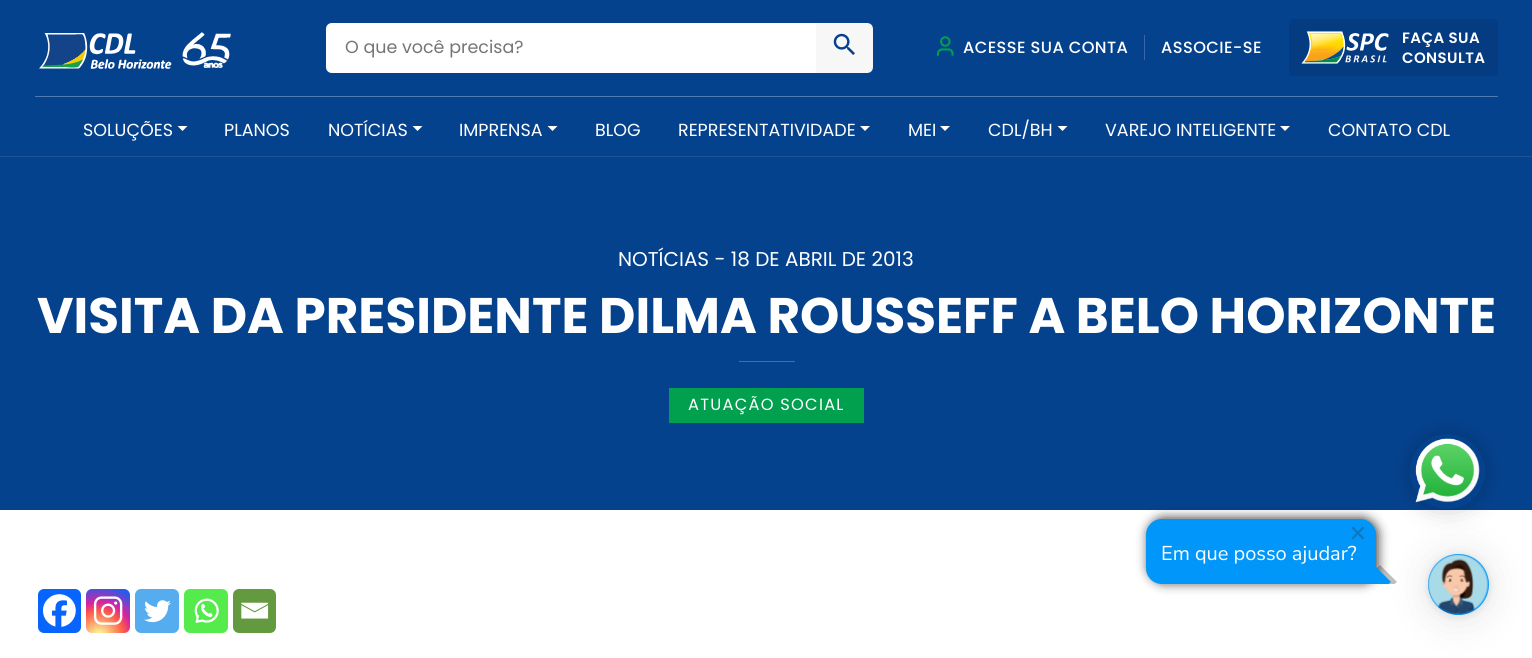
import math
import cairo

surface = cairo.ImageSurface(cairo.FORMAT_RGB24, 1532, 658)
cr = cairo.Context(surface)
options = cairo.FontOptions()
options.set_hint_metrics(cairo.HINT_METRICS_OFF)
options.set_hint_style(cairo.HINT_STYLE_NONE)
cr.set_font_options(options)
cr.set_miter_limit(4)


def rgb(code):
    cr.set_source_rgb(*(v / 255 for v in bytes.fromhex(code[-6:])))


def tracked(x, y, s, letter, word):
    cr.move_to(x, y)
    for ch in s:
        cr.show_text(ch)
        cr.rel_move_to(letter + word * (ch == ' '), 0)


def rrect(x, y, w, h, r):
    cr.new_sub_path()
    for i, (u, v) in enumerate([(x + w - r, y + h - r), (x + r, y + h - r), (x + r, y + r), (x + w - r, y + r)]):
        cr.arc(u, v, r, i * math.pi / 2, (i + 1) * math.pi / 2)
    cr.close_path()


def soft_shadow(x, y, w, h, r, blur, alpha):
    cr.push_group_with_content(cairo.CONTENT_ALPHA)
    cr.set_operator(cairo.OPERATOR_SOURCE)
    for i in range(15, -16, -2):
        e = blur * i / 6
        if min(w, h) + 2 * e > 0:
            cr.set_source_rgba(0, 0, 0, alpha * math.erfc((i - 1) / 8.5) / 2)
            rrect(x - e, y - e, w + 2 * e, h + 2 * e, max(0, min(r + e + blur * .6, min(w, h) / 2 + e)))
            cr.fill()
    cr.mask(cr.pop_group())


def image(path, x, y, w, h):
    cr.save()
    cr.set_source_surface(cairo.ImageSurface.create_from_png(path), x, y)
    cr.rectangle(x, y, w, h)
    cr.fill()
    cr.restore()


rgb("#ffffff")
cr.paint()
rgb("#05428e")
cr.rectangle(0, 0, 1532, 510)
cr.fill()
rgb("#1e5599")
cr.rectangle(0, 156, 1532, 1)
cr.fill()
image("img/1.png", 39, 32, 192, 37)
rgb("#ffffff")
cr.new_path()
cr.move_to(332, 23)
cr.line_to(816, 23)
cr.line_to(816, 73)
cr.line_to(332, 73)
cr.curve_to(328.5, 73, 326, 70.5, 326, 67)
cr.line_to(326, 29)
cr.curve_to(326, 25.5, 328.5, 23, 332, 23)
cr.close_path()
cr.fill()
rgb("#f7f7f7")
cr.new_path()
cr.move_to(816, 23)
cr.line_to(867, 23)
cr.curve_to(870.5, 23, 873, 25.5, 873, 29)
cr.line_to(873, 67)
cr.curve_to(873, 70.5, 870.5, 73, 867, 73)
cr.line_to(816, 73)
cr.close_path()
cr.fill()
image("img/2.png", 833, 33, 22, 22)
image("img/3.png", 937, 36, 17, 20)
rgb("#3768a5")
cr.rectangle(1144, 35, 1, 25)
cr.fill()
rgb("#053b80")
rrect(1289, 19, 209, 57, 4)
cr.fill()
image("img/4.png", 1301, 31, 88, 33)
rgb("#507bb0")
cr.rectangle(35, 96, 1463, 1)
cr.fill()
rgb("#ffffff")
cr.new_path()
cr.move_to(177.5, 126)
cr.line_to(187.5, 126)
cr.line_to(182.5, 131)
cr.close_path()
cr.fill()
cr.new_path()
cr.move_to(412.5, 126)
cr.line_to(422.5, 126)
cr.line_to(417.5, 131)
cr.close_path()
cr.fill()
cr.new_path()
cr.move_to(547.5, 126)
cr.line_to(557.5, 126)
cr.line_to(552.5, 131)
cr.close_path()
cr.fill()
cr.new_path()
cr.move_to(860, 126)
cr.line_to(870, 126)
cr.line_to(865, 131)
cr.close_path()
cr.fill()
cr.new_path()
cr.move_to(940, 126)
cr.line_to(950, 126)
cr.line_to(945, 131)
cr.close_path()
cr.fill()
cr.new_path()
cr.move_to(1057.5, 126)
cr.line_to(1067.5, 126)
cr.line_to(1062.5, 131)
cr.close_path()
cr.fill()
cr.new_path()
cr.move_to(1280, 126)
cr.line_to(1290, 126)
cr.line_to(1285, 131)
cr.close_path()
cr.fill()
rgb("#00a04e")
cr.rectangle(739, 361, 56, 1)
cr.fill()
cr.rectangle(669, 388, 195, 35)
cr.fill()
rgb("#0765fe")
rrect(38, 589, 43, 44, 6)
cr.fill()
image("img/5.png", 43, 594, 33, 33)
gradient = cairo.RadialGradient(99, 636, 0, 99, 636, 56)
gradient.add_color_stop_rgba(0, 0.992, 0.957, 0.592, 1)
gradient.add_color_stop_rgba(0.05, 0.992, 0.957, 0.592, 1)
gradient.add_color_stop_rgba(0.45, 0.992, 0.349, 0.286, 1)
gradient.add_color_stop_rgba(0.6, 0.839, 0.141, 0.624, 1)
gradient.add_color_stop_rgba(0.9, 0.157, 0.353, 0.922, 1)
cr.set_source(gradient)
rrect(86, 589, 44, 44, 6)
cr.fill()
image("img/6.png", 93, 596, 30, 29)
rgb("#55acee")
rrect(135, 589, 44, 44, 6)
cr.fill()
image("img/7.png", 144, 600, 27, 23)
rgb("#55eb4c")
rrect(184, 589, 44, 44, 6)
cr.fill()
image("img/8.png", 194, 598, 25, 25)
rgb("#649a3f")
rrect(233, 589, 43, 44, 6)
cr.fill()
image("img/9.png", 241, 602, 28, 17)
rgb("#000000")
soft_shadow(1148, 518, 230, 65, 16, 5.5, 0.75)
rgb("#0096fa")
cr.new_path()
cr.move_to(1162, 519)
cr.line_to(1360, 519)
cr.curve_to(1369, 519, 1376, 526, 1376, 535)
cr.line_to(1376, 581.5)
cr.curve_to(1376, 583, 1375, 584, 1373.5, 584)
cr.line_to(1162, 584)
cr.curve_to(1153, 584, 1146, 577, 1146, 568)
cr.line_to(1146, 535)
cr.curve_to(1146, 526, 1153, 519, 1162, 519)
cr.close_path()
cr.fill()
cr.save()
cr.set_fill_rule(cairo.FILL_RULE_EVEN_ODD)
cr.new_path()
cr.move_to(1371, 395)
cr.line_to(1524, 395)
cr.line_to(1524, 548)
cr.line_to(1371, 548)
cr.close_path()
cr.move_to(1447.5, 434)
cr.curve_to(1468, 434, 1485, 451, 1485, 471.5)
cr.curve_to(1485, 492, 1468, 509, 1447.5, 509)
cr.curve_to(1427, 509, 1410, 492, 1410, 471.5)
cr.curve_to(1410, 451, 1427, 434, 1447.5, 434)
cr.close_path()
cr.clip()
rgb("#000000")
soft_shadow(1410, 434, 75, 75, 37.5, 12.5, 0.2)
cr.restore()
image("img/10.png", 1415, 438, 65, 65)
rgb("#0f78be")
cr.new_path()
cr.move_to(1362.5, 526.5)
cr.line_to(1364.5, 528)
cr.line_to(1353, 539.5)
cr.line_to(1351.5, 538)
cr.close_path()
cr.fill()
cr.new_path()
cr.move_to(1351.5, 528)
cr.line_to(1353, 526.5)
cr.line_to(1364.5, 538)
cr.line_to(1362.5, 539.5)
cr.close_path()
cr.fill()
cr.set_source_rgba(0, 0, 0, 0.25)
cr.new_path()
cr.move_to(1380, 565)
cr.line_to(1397, 582)
cr.line_to(1394.5, 584)
cr.line_to(1365.5, 584)
cr.line_to(1363, 582)
cr.close_path()
cr.fill()
rgb("#0096fa")
cr.new_path()
cr.move_to(1361.5, 584)
cr.line_to(1359, 582)
cr.line_to(1375, 566)
cr.line_to(1391, 582)
cr.line_to(1388.5, 584)
cr.close_path()
cr.fill()
rgb("#000000")
soft_shadow(1428, 556, 61, 62, 30.5, 20, 0.1)
soft_shadow(1428, 555, 61, 61, 30.5, 4, 0.1)
rgb("#0096fa")
cr.arc(1458.5, 584.5, 30.5, 0, 2 * math.pi)
cr.fill()
image("img/11.png", 1428, 554, 61, 61)
cr.select_font_face("Poppins")
cr.set_font_size(17.5)
rgb("#757575")
cr.move_to(345, 53)
cr.show_text("O que você precisa?")
cr.select_font_face("Poppins Medium")
cr.set_font_size(16.25)
rgb("#ffffff")
tracked(963, 53, "ACESSE SUA CONTA", 0.4, 0)
tracked(1161, 53, "ASSOCIE-SE", 0.4, 0)
cr.select_font_face("Poppins SemiBold")
cr.set_font_size(15)
tracked(1402, 43, "FAÇA SUA", 0.4, 0)
tracked(1402, 63, "CONSULTA", 0.4, 0)
cr.select_font_face("Poppins")
cr.set_font_size(17.5)
for x, y, s in [
    (83, 136, "SOLUÇÕES"),
    (224, 136, "PLANOS"),
    (328, 136, "NOTÍCIAS"),
    (459, 136, "IMPRENSA"),
    (595, 136, "BLOG"),
    (678, 136, "REPRESENTATIVIDADE"),
    (908, 136, "MEI"),
    (988, 136, "CDL/BH"),
    (1105, 136, "VAREJO INTELIGENTE"),
    (1328, 136, "CONTATO CDL"),
]:
    cr.move_to(x, y)
    cr.show_text(s)
cr.set_font_size(20)
cr.move_to(618, 266)
cr.show_text("NOTÍCIAS - 18 DE ABRIL DE 2013")
cr.select_font_face("Poppins", cairo.FONT_SLANT_NORMAL, cairo.FONT_WEIGHT_BOLD)
cr.set_font_size(50)
cr.move_to(37, 333)
cr.show_text("VISITA DA PRESIDENTE DILMA ROUSSEFF A BELO HORIZONTE")
cr.select_font_face("Poppins")
cr.set_font_size(16.25)
tracked(688, 410, "ATUAÇÃO SOCIAL", 1.25, 0)
cr.select_font_face("Nunito Sans")
cr.set_font_size(20)
cr.move_to(1161, 560)
cr.show_text("Em que posso ajudar?")
surface.write_to_png("page.png")
